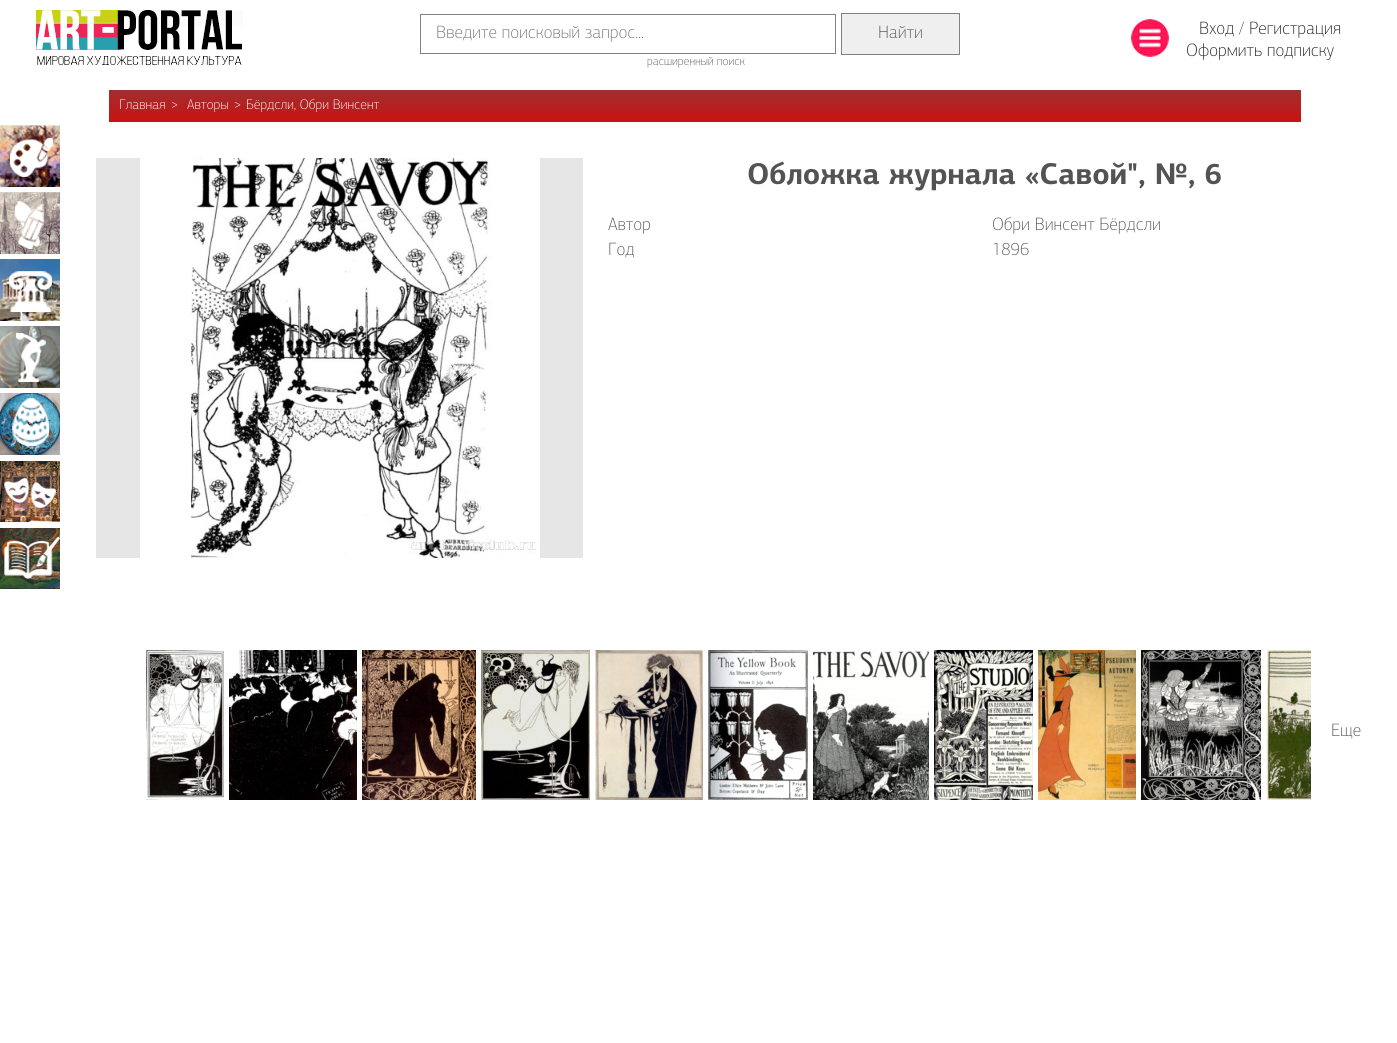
import math
import cairo

surface = cairo.ImageSurface(cairo.FORMAT_RGB24, 1397, 1043)
cr = cairo.Context(surface)
options = cairo.FontOptions()
options.set_hint_metrics(cairo.HINT_METRICS_OFF)
options.set_hint_style(cairo.HINT_STYLE_NONE)
cr.set_font_options(options)
cr.set_miter_limit(4)


def rgb(code):
    cr.set_source_rgb(*(v / 255 for v in bytes.fromhex(code[-6:])))


def image(path, x, y, w, h):
    cr.save()
    cr.set_source_surface(cairo.ImageSurface.create_from_png(path), x, y)
    cr.rectangle(x, y, w, h)
    cr.fill()
    cr.restore()


rgb("#ffffff")
cr.paint()
image("img/1.png", 0, 125, 60, 62)
image("img/2.png", 0, 192, 60, 62)
image("img/3.png", 0, 259, 60, 62)
image("img/4.png", 0, 326, 60, 62)
image("img/5.png", 0, 393, 60, 62)
image("img/6.png", 0, 460, 60, 62)
image("img/7.png", 0, 527, 60, 62)
image("img/8.png", 36, 10, 207, 55)
cr.rectangle(420.5, 14.5, 415, 39)
rgb("#828180")
cr.set_line_width(1)
cr.stroke()
image("img/9.png", 437, 25, 206, 17)
rgb("#efefef")
cr.rectangle(841.5, 13.5, 118, 41)
cr.fill_preserve()
rgb("#828180")
cr.stroke()
image("img/10.png", 879, 25, 43, 14)
image("img/11.png", 647, 57, 98, 11)
image("img/12.png", 1131, 19, 38, 38)
image("img/13.png", 1200, 21, 34, 16)
rgb("#222222")
cr.new_path()
cr.move_to(1239.5, 34.5)
cr.line_to(1239, 34.5)
cr.line_to(1243.5, 21.5)
cr.line_to(1244, 21.5)
cr.close_path()
cr.fill()
image("img/14.png", 1250, 21, 91, 17)
image("img/15.png", 1187, 43, 147, 17)
gradient = cairo.LinearGradient(705, 90, 705, 122)
gradient.add_color_stop_rgba(0, 0.631, 0.184, 0.184, 1)
gradient.add_color_stop_rgba(1, 0.788, 0.071, 0.071, 1)
cr.set_source(gradient)
cr.rectangle(109, 90, 1192, 32)
cr.fill()
image("img/16.png", 120, 99, 45, 11)
image("img/17.png", 172, 102, 6, 6)
image("img/18.png", 187, 99, 41, 13)
image("img/17.png", 235, 102, 6, 6)
image("img/19.png", 247, 98, 133, 14)
rgb("#e6e6e6")
cr.rectangle(96, 158, 487, 400)
cr.fill()
image("img/20.png", 140, 158, 400, 400)
image("img/21.png", 748, 161, 473, 30)
image("img/22.png", 608, 217, 42, 17)
image("img/23.png", 993, 216, 167, 18)
image("img/24.png", 609, 242, 25, 16)
image("img/25.png", 993, 242, 36, 14)
image("img/26.png", 146, 650, 78, 150)
image("img/27.png", 229, 650, 128, 150)
image("img/28.png", 362, 650, 114, 150)
image("img/29.png", 481, 650, 109, 150)
image("img/30.png", 595, 650, 108, 150)
image("img/31.png", 708, 650, 100, 150)
image("img/32.png", 813, 650, 116, 150)
image("img/33.png", 934, 650, 99, 150)
image("img/34.png", 1038, 650, 98, 150)
image("img/35.png", 1141, 650, 120, 150)
image("img/36.png", 1266, 650, 45, 150)
image("img/37.png", 1332, 723, 29, 16)
surface.write_to_png("page.png")
